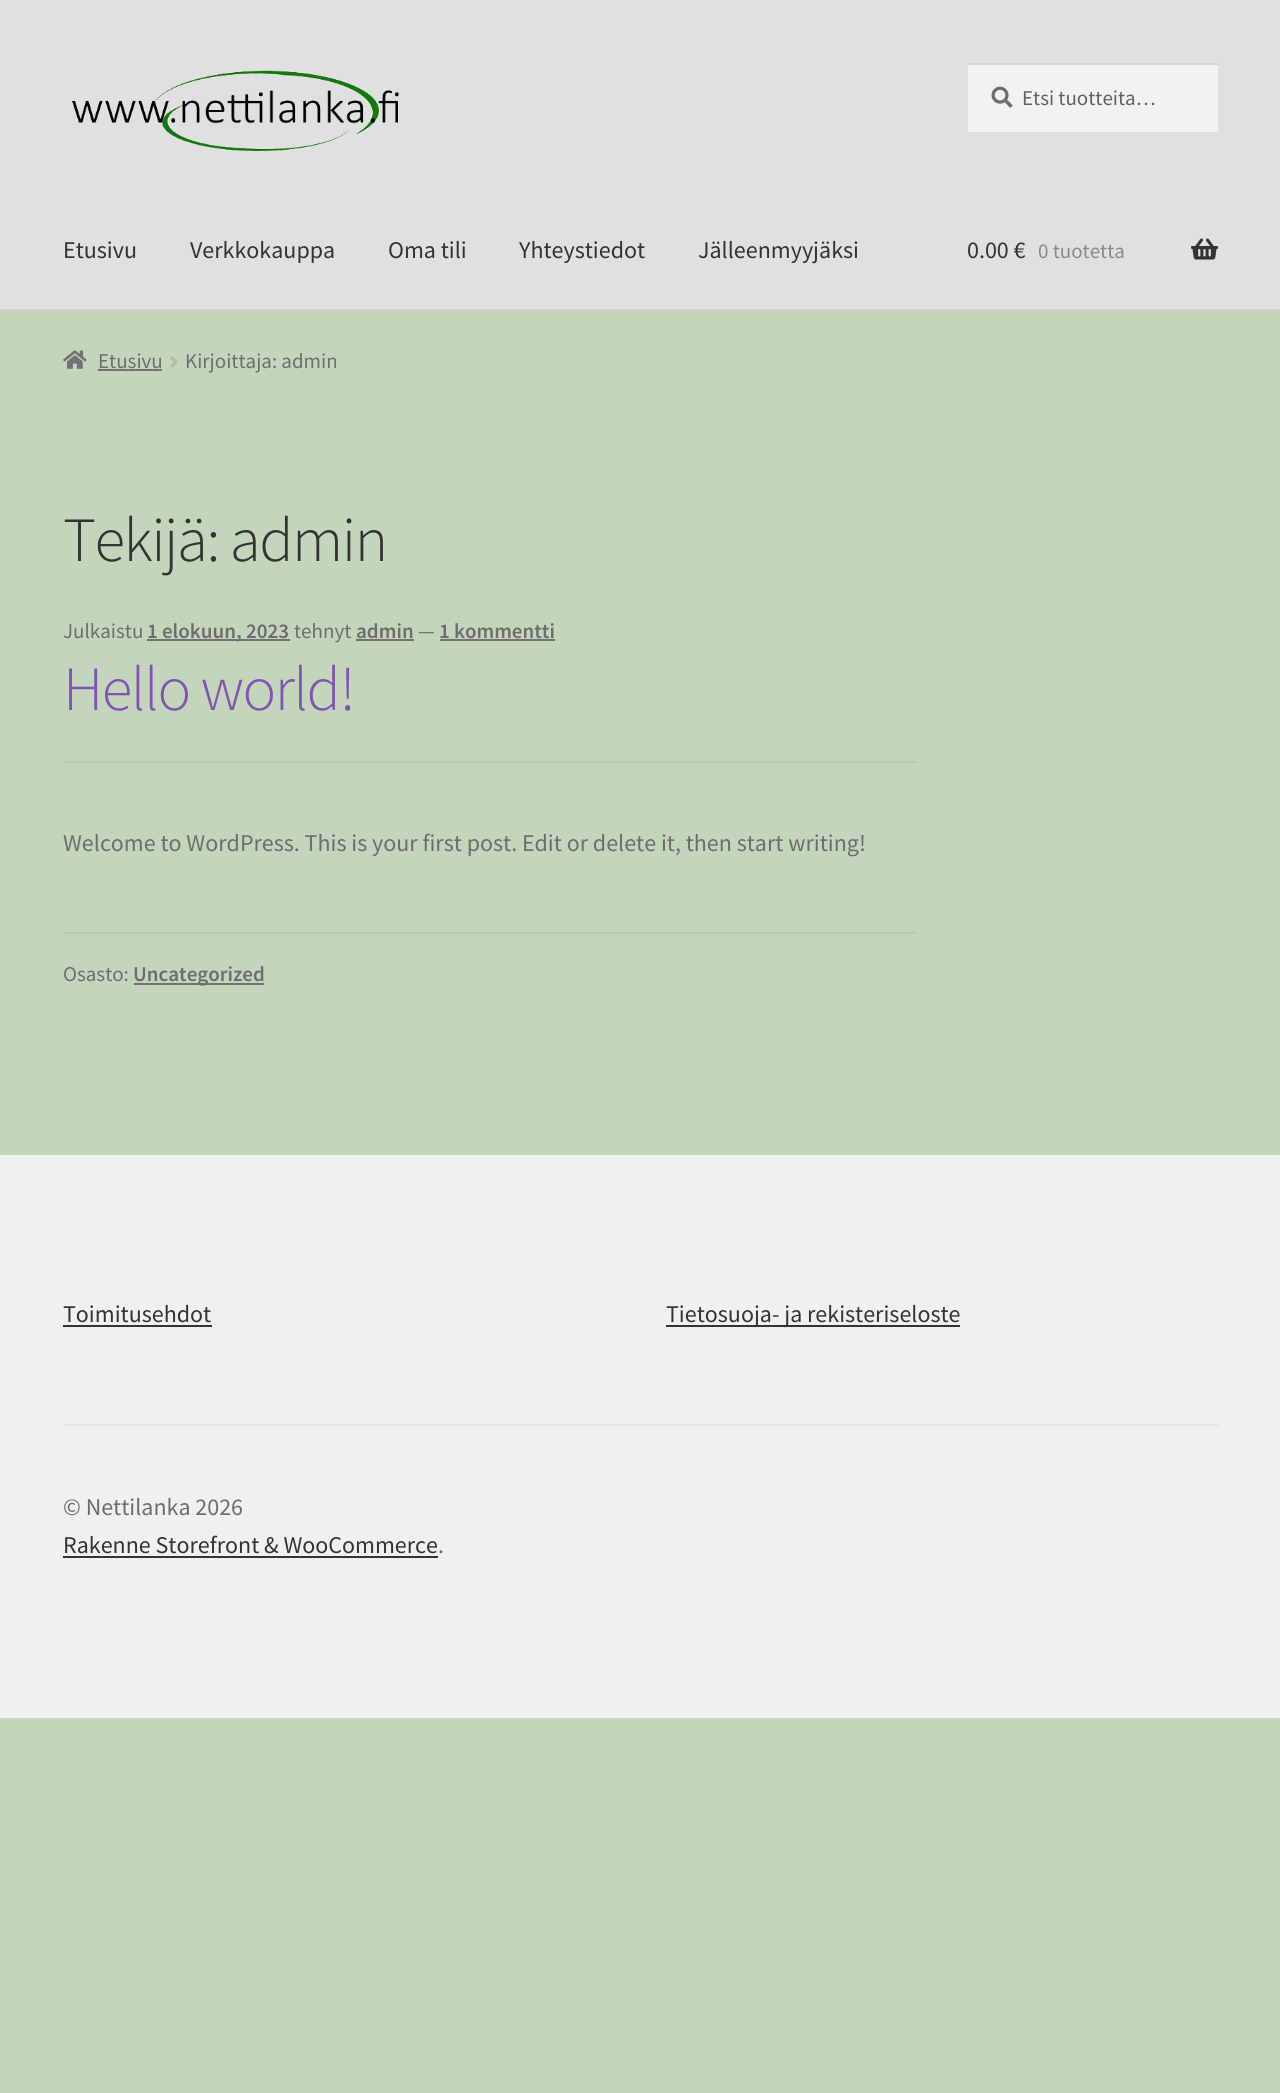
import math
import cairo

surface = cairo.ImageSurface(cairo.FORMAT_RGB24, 1280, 2093)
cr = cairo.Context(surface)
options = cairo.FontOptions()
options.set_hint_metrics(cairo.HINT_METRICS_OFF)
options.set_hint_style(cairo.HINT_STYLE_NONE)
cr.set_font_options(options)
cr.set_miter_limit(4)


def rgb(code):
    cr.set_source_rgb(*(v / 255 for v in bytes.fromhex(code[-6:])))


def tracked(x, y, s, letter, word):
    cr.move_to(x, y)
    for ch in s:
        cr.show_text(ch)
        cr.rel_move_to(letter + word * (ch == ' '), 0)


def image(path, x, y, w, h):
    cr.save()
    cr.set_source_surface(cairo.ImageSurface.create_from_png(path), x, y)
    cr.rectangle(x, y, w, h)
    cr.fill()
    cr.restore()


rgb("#c3d6bc")
cr.paint()
rgb("#e0e0e0")
cr.rectangle(0, 0, 1280, 309)
cr.fill()
rgb("#d1d1d1")
cr.rectangle(0, 309, 1280, 2)
cr.fill()
image("img/1.png", 72, 70, 327, 82)
rgb("#f2f2f2")
cr.rectangle(968, 65, 250, 67)
cr.fill()
image("img/2.png", 991, 86, 22, 22)
rgb("#d4d4d4")
cr.rectangle(968, 63, 250, 2)
cr.fill()
image("img/3.png", 1191, 238, 27, 22)
image("img/4.png", 63, 350, 24, 19)
rgb("#727272")
cr.rectangle(98, 369, 64, 2)
cr.fill()
image("img/5.png", 170, 356, 8, 12)
for x, y, w, h, color in [
    (63, 761, 854, 2, "#b9cbb3"),
    (147, 639, 143, 2, "#727272"),
    (356, 639, 58, 2, "#727272"),
    (440, 639, 115, 2, "#727272"),
    (63, 932, 854, 2, "#b9cbb3"),
    (134, 983, 130, 2, "#727272"),
    (0, 1155, 1280, 563, "#f0f0f0"),
    (63, 1424, 1155, 2, "#e4e4e4"),
    (63, 1325, 149, 2, "#333333"),
    (666, 1325, 294, 2, "#333333"),
    (63, 1556, 375, 2, "#333333"),
]:
    rgb(color)
    cr.rectangle(x, y, w, h)
    cr.fill()
cr.select_font_face("Source Sans Pro")
cr.set_font_size(21)
rgb("#616161")
cr.move_to(1022, 105)
cr.show_text("Etsi tuotteita…")
cr.set_font_size(24)
rgb("#333333")
for x, y, s in [
    (63, 258, "Etusivu"),
    (190, 258, "Verkkokauppa"),
    (388, 258, "Oma tili"),
    (519, 258, "Yhteystiedot"),
    (698, 258, "Jälleenmyyjäksi"),
    (967, 258, "0.00 €"),
]:
    cr.move_to(x, y)
    cr.show_text(s)
cr.set_font_size(21)
rgb("#8a8a8a")
cr.move_to(1038, 258)
cr.show_text("0 tuotetta")
rgb("#6d6d6d")
cr.move_to(98, 368)
cr.show_text("Etusivu")
cr.move_to(185, 368)
cr.show_text("Kirjoittaja: admin")
cr.select_font_face("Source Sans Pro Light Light")
cr.set_font_size(63)
rgb("#333333")
tracked(63, 561, "Tekijä: admin", -1.5, 0)
cr.select_font_face("Source Sans Pro")
cr.set_font_size(21)
rgb("#6d6d6d")
cr.move_to(63, 638)
cr.show_text("Julkaistu")
cr.select_font_face("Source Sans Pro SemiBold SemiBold")
cr.move_to(147, 638)
cr.show_text("1 elokuun, 2023")
cr.select_font_face("Source Sans Pro")
cr.move_to(294, 638)
cr.show_text("tehnyt")
cr.select_font_face("Source Sans Pro SemiBold SemiBold")
cr.move_to(356, 638)
cr.show_text("admin")
cr.select_font_face("Source Sans Pro")
cr.move_to(418, 638)
cr.show_text("—")
cr.select_font_face("Source Sans Pro SemiBold SemiBold")
cr.move_to(439, 638)
cr.show_text("1 kommentti")
cr.select_font_face("Source Sans Pro Light Light")
cr.set_font_size(63)
rgb("#7f54b3")
tracked(63, 710, "Hello world!", -1.5, 0)
cr.select_font_face("Source Sans Pro")
cr.set_font_size(24)
rgb("#6d6d6d")
cr.move_to(63, 851)
cr.show_text("Welcome to WordPress. This is your first post. Edit or delete it, then start writing!")
cr.set_font_size(21)
cr.move_to(63, 981)
cr.show_text("Osasto:")
cr.select_font_face("Source Sans Pro SemiBold SemiBold")
cr.move_to(133, 981)
cr.show_text("Uncategorized")
cr.select_font_face("Source Sans Pro")
cr.set_font_size(24)
rgb("#333333")
cr.move_to(63, 1322)
cr.show_text("Toimitusehdot")
cr.move_to(666, 1322)
cr.show_text("Tietosuoja- ja rekisteriseloste")
rgb("#6d6d6d")
cr.move_to(63, 1515)
cr.show_text("© Nettilanka 2026")
rgb("#333333")
cr.move_to(63, 1553)
cr.show_text("Rakenne Storefront & WooCommerce")
rgb("#6d6d6d")
cr.move_to(438, 1553)
cr.show_text(".")
surface.write_to_png("page.png")
